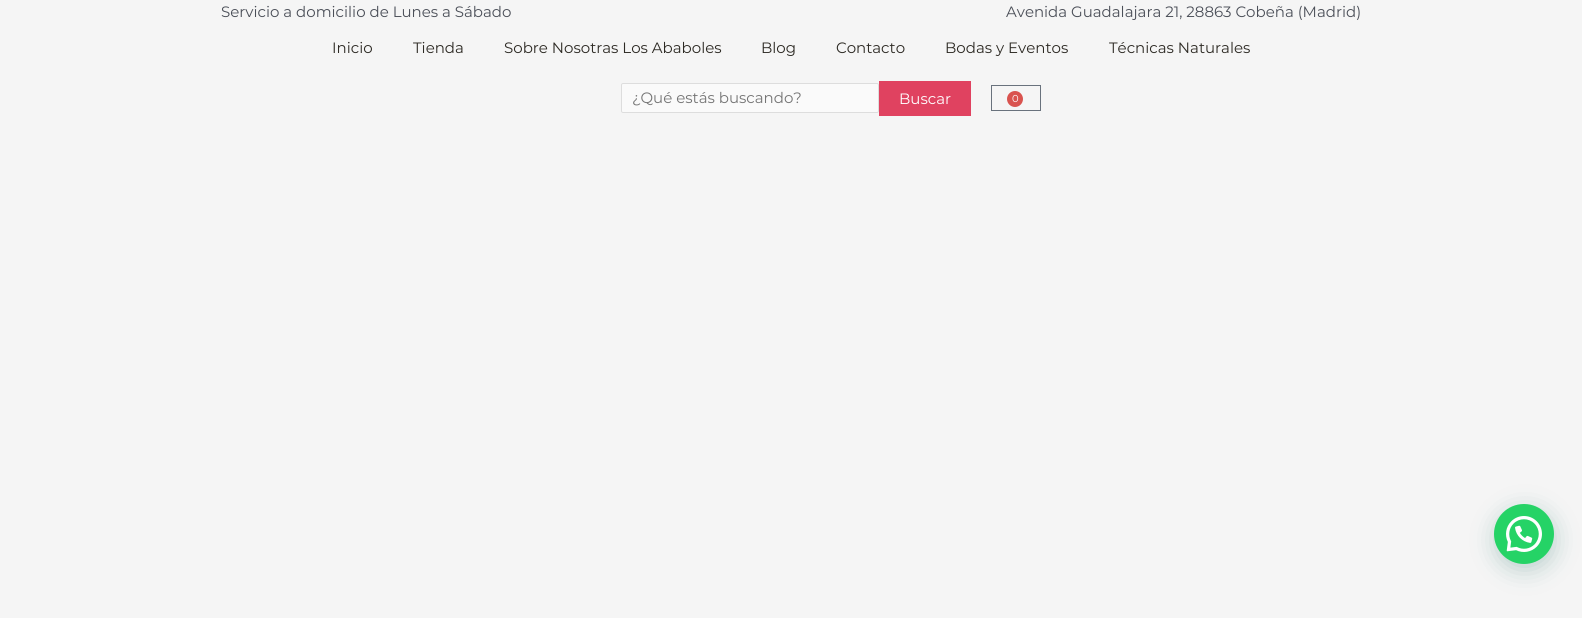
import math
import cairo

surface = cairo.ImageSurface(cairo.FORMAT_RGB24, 1582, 618)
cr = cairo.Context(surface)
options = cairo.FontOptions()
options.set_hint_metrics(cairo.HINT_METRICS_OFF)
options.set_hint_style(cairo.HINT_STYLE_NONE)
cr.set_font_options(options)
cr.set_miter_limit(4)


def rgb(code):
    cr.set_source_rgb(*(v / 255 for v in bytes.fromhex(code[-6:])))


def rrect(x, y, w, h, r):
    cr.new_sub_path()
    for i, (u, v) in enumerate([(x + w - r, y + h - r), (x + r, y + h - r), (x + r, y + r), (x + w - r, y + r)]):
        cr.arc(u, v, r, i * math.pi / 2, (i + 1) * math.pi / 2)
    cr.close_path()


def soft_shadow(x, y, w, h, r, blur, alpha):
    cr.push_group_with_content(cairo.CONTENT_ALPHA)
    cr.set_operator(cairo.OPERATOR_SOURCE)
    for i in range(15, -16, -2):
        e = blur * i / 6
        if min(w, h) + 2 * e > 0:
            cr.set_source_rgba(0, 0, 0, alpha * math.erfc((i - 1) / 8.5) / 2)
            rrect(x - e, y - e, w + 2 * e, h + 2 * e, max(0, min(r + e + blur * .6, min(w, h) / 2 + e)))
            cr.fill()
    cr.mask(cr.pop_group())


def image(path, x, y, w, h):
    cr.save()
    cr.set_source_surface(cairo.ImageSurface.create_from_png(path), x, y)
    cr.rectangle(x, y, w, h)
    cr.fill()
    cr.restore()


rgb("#f5f5f5")
cr.paint()
rgb("#fafafa")
rrect(621.5, 83.5, 257, 29, 1.5)
cr.fill_preserve()
rgb("#dddddd")
cr.set_line_width(1)
cr.stroke()
rgb("#e04260")
cr.rectangle(879, 81, 92, 35)
cr.fill()
cr.rectangle(991.5, 85.5, 49, 25)
rgb("#69727d")
cr.stroke()
rgb("#d9534f")
cr.arc(1015, 99, 8, 0, 2 * math.pi)
cr.fill()
rgb("#075e54")
soft_shadow(1495, 510, 60, 60, 30, 12, 0.24)
rgb("#25d366")
cr.arc(1524, 534, 30, 0, 2 * math.pi)
cr.fill()
image("img/1.png", 1506, 516, 36, 36)
cr.select_font_face("Montserrat Thin")
cr.set_font_size(15)
rgb("#4b4f58")
cr.move_to(221, 17)
cr.show_text("Servicio a domicilio de Lunes a Sábado")
cr.move_to(1006, 17)
cr.show_text("Avenida Guadalajara 21, 28863 Cobeña (Madrid)")
rgb("#2d2a24")
for x, y, s in [
    (332, 53, "Inicio"),
    (413, 53, "Tienda"),
    (504, 53, "Sobre Nosotras Los Ababoles"),
    (761, 53, "Blog"),
    (836, 53, "Contacto"),
    (945, 53, "Bodas y Eventos"),
    (1109, 53, "Técnicas Naturales"),
]:
    cr.move_to(x, y)
    cr.show_text(s)
rgb("#757575")
cr.move_to(632, 103)
cr.show_text("¿Qué estás buscando?")
rgb("#ffffff")
cr.move_to(899, 104)
cr.show_text("Buscar")
cr.set_font_size(10)
cr.move_to(1012, 102)
cr.show_text("0")
surface.write_to_png("page.png")
